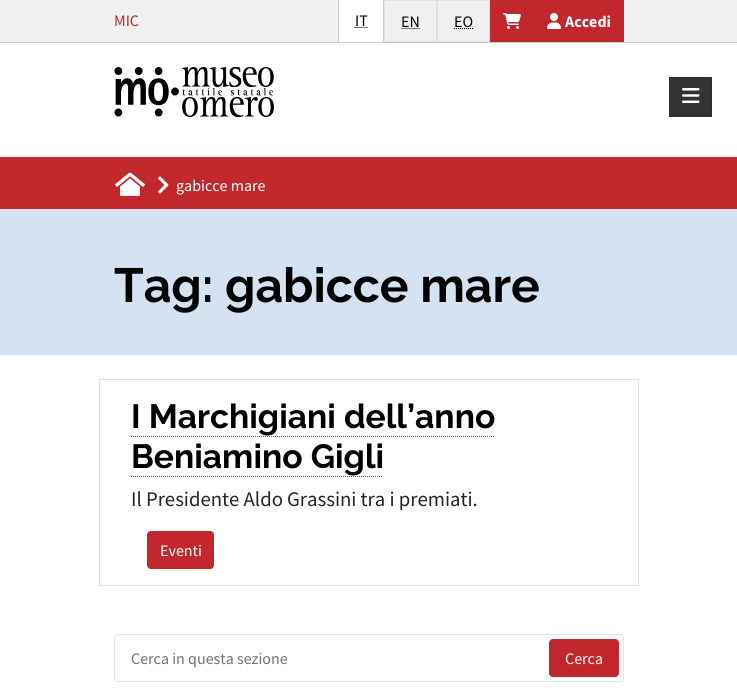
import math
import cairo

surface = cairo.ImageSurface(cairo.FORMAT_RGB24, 737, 688)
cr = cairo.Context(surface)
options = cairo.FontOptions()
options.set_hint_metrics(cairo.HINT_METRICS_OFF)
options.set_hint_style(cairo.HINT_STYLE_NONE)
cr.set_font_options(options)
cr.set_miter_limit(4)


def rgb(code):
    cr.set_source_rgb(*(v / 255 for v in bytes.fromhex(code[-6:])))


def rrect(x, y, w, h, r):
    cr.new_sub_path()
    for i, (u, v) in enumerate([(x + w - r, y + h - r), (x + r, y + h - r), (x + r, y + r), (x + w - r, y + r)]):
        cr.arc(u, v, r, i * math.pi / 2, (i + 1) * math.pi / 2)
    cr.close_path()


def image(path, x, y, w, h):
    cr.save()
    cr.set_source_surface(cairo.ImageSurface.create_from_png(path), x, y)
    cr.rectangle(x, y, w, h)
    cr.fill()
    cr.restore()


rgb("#ffffff")
cr.paint()
for x, y, w, h, color in [
    (0, 0, 737, 42, "#f0f0f0"),
    (0, 42, 737, 1, "#cccccc"),
    (339, 0, 44, 42, "#ffffff"),
    (383, 0, 1, 42, "#cccccc"),
    (338, 0, 1, 42, "#cccccc"),
]:
    rgb(color)
    cr.rectangle(x, y, w, h)
    cr.fill()
cr.new_path()
cr.move_to(354.5, 27.5)
cr.line_to(367.5, 27.5)
rgb("#000000")
cr.set_line_width(1)
cr.set_dash([1, 1])
cr.stroke()
cr.rectangle(384.5, 0.5, 52, 41)
rgb("#dee2e6")
cr.set_dash([])
cr.stroke()
cr.new_path()
cr.move_to(401.5, 28.5)
cr.line_to(420, 28.5)
rgb("#000000")
cr.set_dash([1, 1])
cr.stroke()
cr.rectangle(437.5, 0.5, 52, 41)
rgb("#dee2e6")
cr.set_dash([])
cr.stroke()
cr.new_path()
cr.move_to(454, 28.5)
cr.line_to(473.5, 28.5)
rgb("#000000")
cr.set_dash([1, 1])
cr.stroke()
rgb("#c1272d")
cr.rectangle(490, 0, 134, 42)
cr.fill()
image("img/1.png", 503, 13, 18, 16)
image("img/2.png", 547, 13, 14, 16)
image("img/3.png", 114, 67, 160, 50)
rgb("#333333")
cr.rectangle(669, 77, 43, 40)
cr.fill()
rrect(669.5, 77.5, 42, 37, 3.5)
rgb("#2e2e2e")
cr.set_dash([])
cr.stroke()
image("img/4.png", 682, 88, 18, 15)
rgb("#c1272d")
cr.rectangle(0, 157, 737, 52)
cr.fill()
image("img/5.png", 115, 172, 30, 24)
image("img/6.png", 158, 176, 11, 18)
rgb("#d5e2f2")
cr.rectangle(0, 209, 737, 146)
cr.fill()
cr.rectangle(99.5, 379.5, 539, 206)
rgb("#dee2e6")
cr.stroke()
cr.new_path()
cr.move_to(131, 436.5)
cr.line_to(495, 436.5)
rgb("#c1272d")
cr.set_dash([1, 1])
cr.stroke()
cr.new_path()
cr.move_to(131, 476.5)
cr.line_to(383, 476.5)
cr.stroke()
rrect(147.5, 531.5, 66, 37, 3.5)
cr.fill_preserve()
cr.set_dash([])
cr.stroke()
rrect(114.5, 634.5, 509, 47, 3.5)
rgb("#dee2e6")
cr.stroke()
rgb("#c1272d")
rrect(549, 639, 70, 38, 4)
cr.fill()
cr.select_font_face("Source Sans Pro")
cr.set_font_size(16)
cr.move_to(114, 26)
cr.show_text("MIC")
rgb("#000000")
for x, y, s in [
    (355, 26, "IT"),
    (401, 27, "EN"),
    (454, 27, "EO"),
]:
    cr.move_to(x, y)
    cr.show_text(s)
cr.select_font_face("Source Sans Pro", cairo.FONT_SLANT_NORMAL, cairo.FONT_WEIGHT_BOLD)
rgb("#ffffff")
cr.move_to(565, 27)
cr.show_text("Accedi")
cr.select_font_face("Source Sans Pro")
cr.move_to(176, 191)
cr.show_text("gabicce mare")
cr.select_font_face("Raleway", cairo.FONT_SLANT_NORMAL, cairo.FONT_WEIGHT_BOLD)
cr.set_font_size(48)
rgb("#000000")
cr.move_to(114, 302)
cr.show_text("Tag: gabicce mare")
cr.set_font_size(33.6)
cr.move_to(131, 428)
cr.show_text("I Marchigiani dell’anno")
cr.move_to(131, 468)
cr.show_text("Beniamino Gigli")
cr.select_font_face("Source Sans Pro")
cr.set_font_size(20.75)
rgb("#212529")
cr.move_to(131, 506)
cr.show_text("Il Presidente Aldo Grassini tra i premiati.")
cr.set_font_size(16)
rgb("#ffffff")
cr.move_to(160, 556)
cr.show_text("Eventi")
rgb("#6c757d")
cr.move_to(131, 664)
cr.show_text("Cerca in questa sezione")
rgb("#f8f9fa")
cr.move_to(565, 664)
cr.show_text("Cerca")
surface.write_to_png("page.png")
